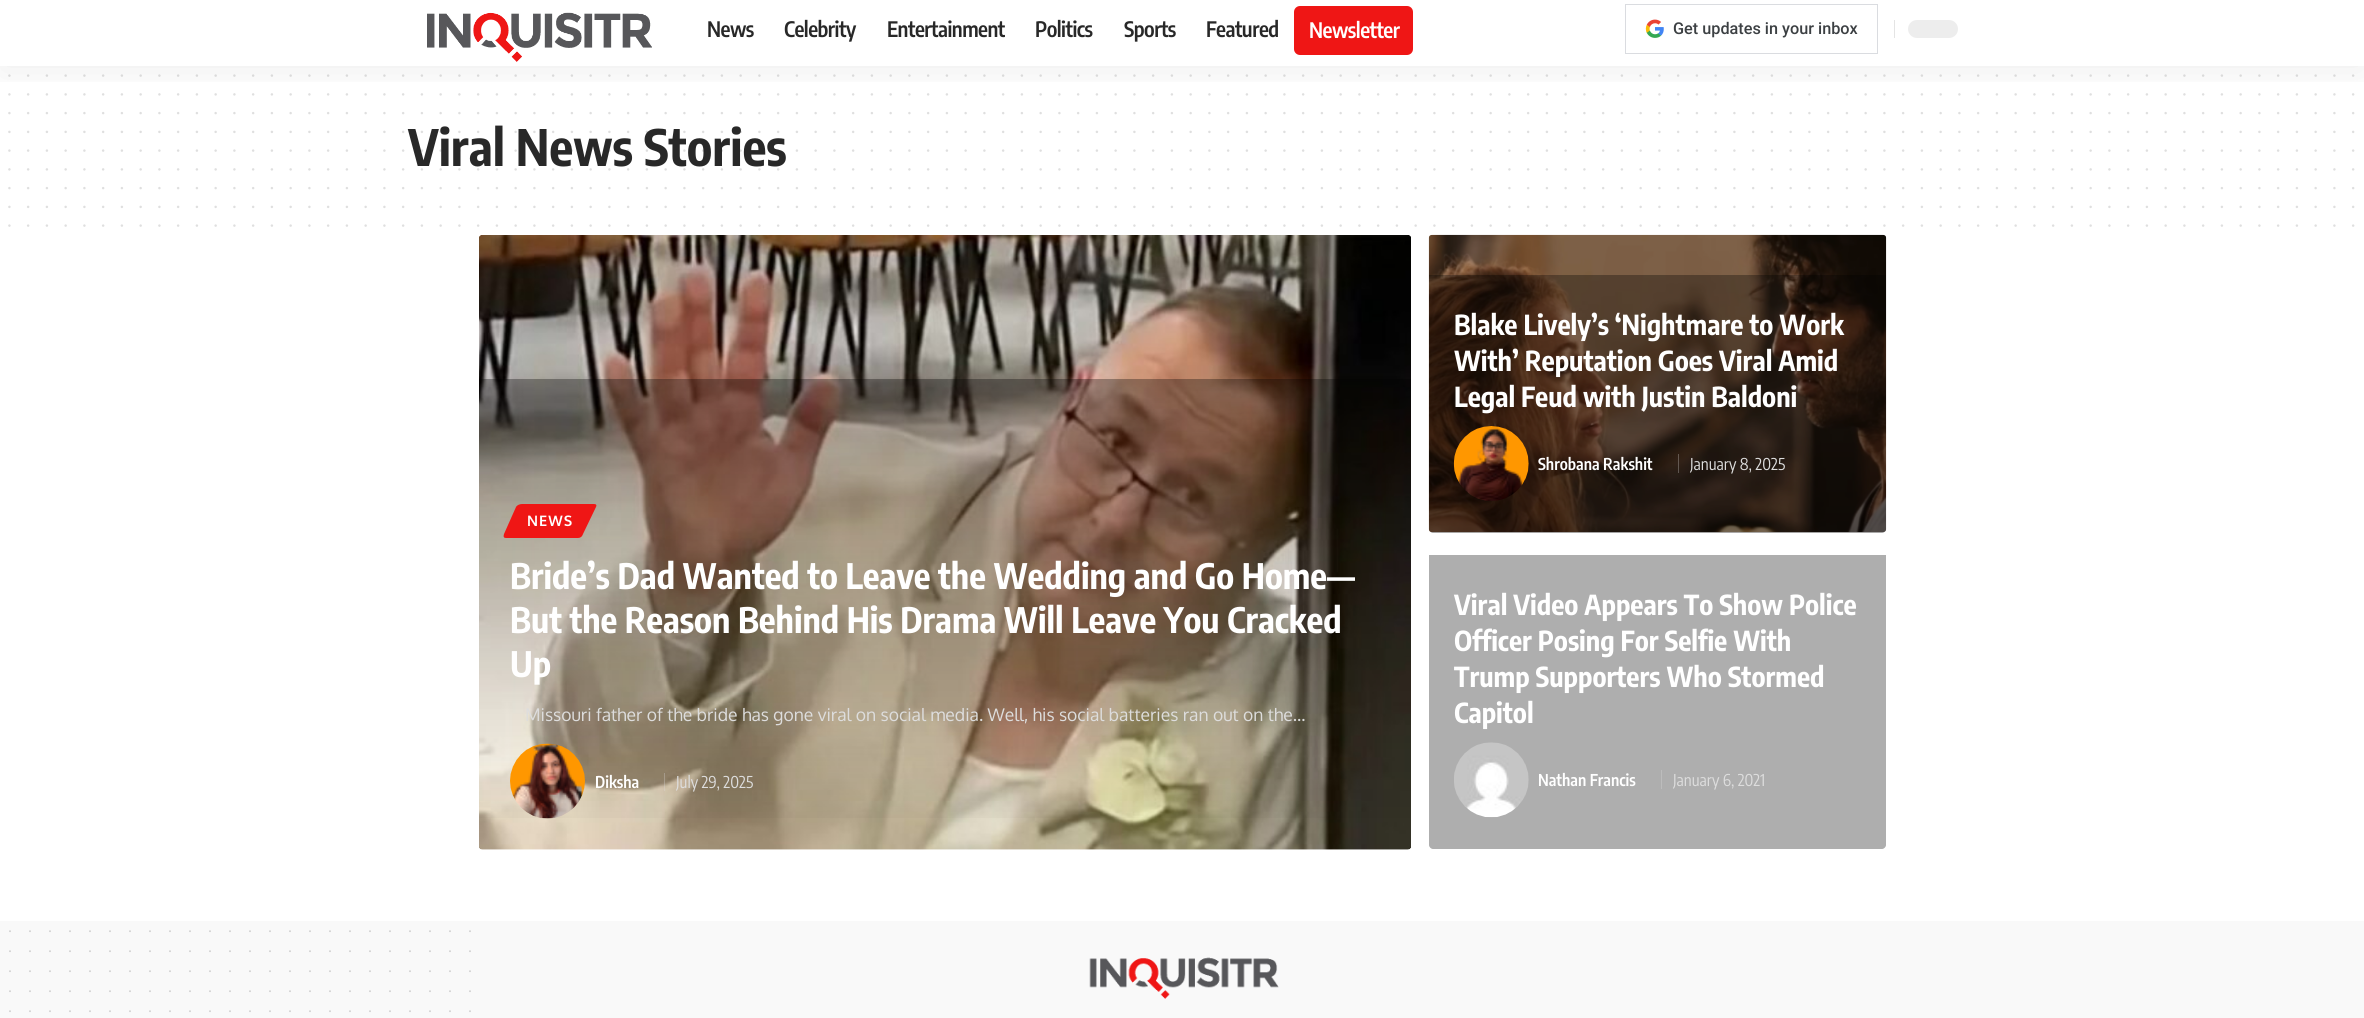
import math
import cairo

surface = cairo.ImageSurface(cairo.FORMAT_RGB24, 2364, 1018)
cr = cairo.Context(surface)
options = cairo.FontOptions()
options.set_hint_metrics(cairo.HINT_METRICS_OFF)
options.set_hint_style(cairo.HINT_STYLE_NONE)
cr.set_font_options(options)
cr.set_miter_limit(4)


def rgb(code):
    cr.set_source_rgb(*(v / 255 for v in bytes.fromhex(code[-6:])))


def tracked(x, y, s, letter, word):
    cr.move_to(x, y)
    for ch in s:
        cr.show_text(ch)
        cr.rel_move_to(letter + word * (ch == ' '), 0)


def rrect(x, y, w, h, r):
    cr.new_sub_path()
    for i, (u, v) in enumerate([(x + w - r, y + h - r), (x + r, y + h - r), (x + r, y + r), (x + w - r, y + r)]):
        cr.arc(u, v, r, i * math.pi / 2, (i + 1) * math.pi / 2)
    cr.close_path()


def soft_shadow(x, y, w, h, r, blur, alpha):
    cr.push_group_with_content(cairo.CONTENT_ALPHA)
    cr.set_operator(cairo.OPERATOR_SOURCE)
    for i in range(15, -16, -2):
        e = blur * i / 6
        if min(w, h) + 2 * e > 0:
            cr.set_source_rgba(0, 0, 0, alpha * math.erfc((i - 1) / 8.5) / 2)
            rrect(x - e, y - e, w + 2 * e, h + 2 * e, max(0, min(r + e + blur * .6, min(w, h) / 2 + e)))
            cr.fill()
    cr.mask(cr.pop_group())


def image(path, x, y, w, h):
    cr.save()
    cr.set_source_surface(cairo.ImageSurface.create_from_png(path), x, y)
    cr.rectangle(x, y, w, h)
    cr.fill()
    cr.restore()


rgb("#ffffff")
cr.paint()
cr.new_path()
cr.move_to(9.4, 75.6)
cr.line_to(2353.4, 75.6)
rgb("#dfdfdf")
cr.set_line_width(2.5)
cr.set_line_cap(cairo.LINE_CAP_ROUND)
cr.set_dash([0, 18.75])
cr.stroke()
cr.new_path()
cr.move_to(9.4, 94.4)
cr.line_to(2353.4, 94.4)
cr.stroke()
cr.new_path()
cr.move_to(9.4, 113.1)
cr.line_to(2353.4, 113.1)
cr.stroke()
cr.save()
cr.rectangle(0, 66, 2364, 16)
cr.clip()
rgb("#000000")
soft_shadow(0, -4, 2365, 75, 0, 19, 0.07)
cr.restore()
image("img/1.png", 427, 12, 225, 50)
rgb("#ef1615")
rrect(1294, 6, 119, 49, 6)
cr.fill()
cr.rectangle(1625.5, 4.5, 252, 49)
rgb("#dadce0")
cr.set_line_width(1)
cr.set_line_cap(cairo.LINE_CAP_BUTT)
cr.set_dash([])
cr.stroke()
image("img/2.png", 1645, 19, 19, 19)
rgb("#e4e4e4")
cr.rectangle(1894, 20, 1, 18)
cr.fill()
rgb("#ededed")
rrect(1908, 20, 50, 18, 9)
cr.fill()
cr.new_path()
cr.move_to(9.4, 169.4)
cr.line_to(2353.4, 169.4)
rgb("#dfdfdf")
cr.set_line_width(2.5)
cr.set_line_cap(cairo.LINE_CAP_ROUND)
cr.set_dash([0, 18.75])
cr.stroke()
cr.new_path()
cr.move_to(9.4, 188.1)
cr.line_to(2353.4, 188.1)
cr.stroke()
cr.new_path()
cr.move_to(9.4, 206.9)
cr.line_to(2353.4, 206.9)
cr.stroke()
cr.new_path()
cr.move_to(9.4, 225.6)
cr.line_to(2353.4, 225.6)
cr.stroke()
image("img/3.png", 479, 235, 932, 615)
gradient = cairo.LinearGradient(945, 379, 945, 850)
gradient.add_color_stop_rgba(0, 0, 0, 0, 0.32)
gradient.add_color_stop_rgba(1, 0, 0, 0, 0)
cr.set_source(gradient)
cr.rectangle(479, 379, 932, 439)
cr.fill()
rgb("#ef1615")
cr.new_path()
cr.move_to(522, 504)
cr.line_to(594, 504)
cr.curve_to(596, 504, 597, 505, 596, 507)
cr.line_to(583, 534)
cr.curve_to(582, 537, 580, 538, 578, 538)
cr.line_to(506, 538)
cr.curve_to(504, 538, 503, 537, 504, 534)
cr.line_to(516, 507)
cr.curve_to(517, 505, 520, 504, 522, 504)
cr.close_path()
cr.fill()
image("img/4.png", 510, 743, 75, 76)
cr.set_source_rgba(0.867, 0.867, 0.867, 0.3)
cr.rectangle(664, 773, 1, 18)
cr.fill()
image("img/5.png", 1428, 234, 459, 299)
cr.set_source_rgba(0, 0, 0, 0.32)
cr.new_path()
cr.move_to(1429, 275)
cr.line_to(1886, 275)
cr.line_to(1886, 529)
cr.curve_to(1886, 531, 1884, 533, 1882, 533)
cr.line_to(1433, 533)
cr.curve_to(1431, 533, 1429, 531, 1429, 529)
cr.close_path()
cr.fill()
image("img/6.png", 1453, 426, 76, 75)
cr.set_source_rgba(0.867, 0.867, 0.867, 0.3)
cr.rectangle(1678, 454, 1, 19)
cr.fill()
rgb("#aeaeae")
cr.new_path()
cr.move_to(1429, 555)
cr.line_to(1886, 555)
cr.line_to(1886, 845)
cr.curve_to(1886, 847, 1884, 849, 1882, 849)
cr.line_to(1433, 849)
cr.curve_to(1431, 849, 1429, 847, 1429, 845)
cr.close_path()
cr.fill()
image("img/7.png", 1454, 742, 75, 76)
rgb("#bcbcbc")
cr.rectangle(1661, 770, 1, 19)
cr.fill()
rgb("#f9f9f9")
cr.rectangle(0, 921, 2364, 97)
cr.fill()
image("img/8.png", 1089, 957, 190, 42)
cr.new_path()
cr.move_to(10, 931.2)
cr.line_to(470.2, 931.2)
rgb("#cfcfcf")
cr.set_line_width(1.9)
cr.set_dash([0, 20])
cr.stroke()
cr.new_path()
cr.move_to(10, 951.2)
cr.line_to(470.2, 951.2)
cr.stroke()
cr.new_path()
cr.move_to(10, 971.2)
cr.line_to(470.2, 971.2)
cr.stroke()
cr.new_path()
cr.move_to(10, 991.2)
cr.line_to(470.2, 991.2)
cr.stroke()
cr.new_path()
cr.move_to(10, 1011.2)
cr.line_to(470.2, 1011.2)
cr.stroke()
cr.select_font_face("Encode Sans Condensed SemiBold")
cr.set_font_size(21.25)
rgb("#282828")
for x, y, s in [
    (707, 37, "News"),
    (784, 37, "Celebrity"),
    (887, 37, "Entertainment"),
    (1035, 37, "Politics"),
    (1124, 37, "Sports"),
    (1206, 37, "Featured"),
]:
    tracked(x, y, s, -0.5, 0)
rgb("#ffffff")
tracked(1309, 38, "Newsletter", -0.5, 0)
cr.select_font_face("Roboto Medium")
cr.set_font_size(16.25)
rgb("#3c4043")
cr.move_to(1673, 34)
cr.show_text("Get updates in your inbox")
cr.select_font_face("Encode Sans Condensed", cairo.FONT_SLANT_NORMAL, cairo.FONT_WEIGHT_BOLD)
cr.set_font_size(50)
rgb("#282828")
cr.move_to(408, 166)
cr.show_text("Viral News Stories")
cr.new_path()
cr.move_to(9.4, 150.6)
cr.line_to(2353.4, 150.6)
cr.set_source_rgba(0.157, 0.157, 0.157, 0.15)
cr.set_line_width(2.5)
cr.set_dash([0, 18.75])
cr.stroke()
cr.new_path()
cr.move_to(9.4, 131.9)
cr.line_to(2353.4, 131.9)
cr.stroke()
cr.select_font_face("Oxygen", cairo.FONT_SLANT_NORMAL, cairo.FONT_WEIGHT_BOLD)
cr.set_font_size(14.5)
rgb("#ffffff")
tracked(527, 526, "NEWS", 1, 0)
cr.select_font_face("Encode Sans Condensed", cairo.FONT_SLANT_NORMAL, cairo.FONT_WEIGHT_BOLD)
cr.set_font_size(35)
for x, y, s in [
    (510, 589, "Bride’s Dad Wanted to Leave the Wedding and Go Home—"),
    (510, 633, "But the Reason Behind His Drama Will Leave You Cracked"),
    (510, 677, "Up"),
]:
    cr.move_to(x, y)
    cr.show_text(s)
cr.select_font_face("Oxygen")
cr.set_font_size(17.5)
rgb("#dddddd")
cr.move_to(525, 721)
cr.show_text("Missouri father of the bride has gone viral on social media. Well, his social batteries ran out on the…")
cr.select_font_face("Encode Sans Condensed SemiBold")
cr.set_font_size(16.25)
rgb("#ffffff")
cr.move_to(595, 788)
cr.show_text("Diksha")
cr.select_font_face("Encode Sans Condensed")
rgb("#dddddd")
cr.move_to(676, 788)
cr.show_text("July 29, 2025")
cr.select_font_face("Encode Sans Condensed", cairo.FONT_SLANT_NORMAL, cairo.FONT_WEIGHT_BOLD)
cr.set_font_size(27.5)
rgb("#ffffff")
for x, y, s in [
    (1454, 335, "Blake Lively’s ‘Nightmare to Work"),
    (1454, 371, "With’ Reputation Goes Viral Amid"),
    (1454, 407, "Legal Feud with Justin Baldoni"),
]:
    cr.move_to(x, y)
    cr.show_text(s)
cr.select_font_face("Encode Sans Condensed SemiBold")
cr.set_font_size(16.25)
cr.move_to(1538, 470)
cr.show_text("Shrobana Rakshit")
cr.select_font_face("Encode Sans Condensed")
rgb("#dddddd")
cr.move_to(1690, 470)
cr.show_text("January 8, 2025")
cr.select_font_face("Encode Sans Condensed", cairo.FONT_SLANT_NORMAL, cairo.FONT_WEIGHT_BOLD)
cr.set_font_size(27.5)
rgb("#ffffff")
for x, y, s in [
    (1454, 615, "Viral Video Appears To Show Police"),
    (1454, 651, "Officer Posing For Selfie With"),
    (1454, 687, "Trump Supporters Who Stormed"),
    (1454, 723, "Capitol"),
]:
    cr.move_to(x, y)
    cr.show_text(s)
cr.select_font_face("Encode Sans Condensed SemiBold")
cr.set_font_size(16.25)
cr.move_to(1538, 786)
cr.show_text("Nathan Francis")
cr.select_font_face("Encode Sans Condensed")
rgb("#dddddd")
cr.move_to(1673, 786)
cr.show_text("January 6, 2021")
surface.write_to_png("page.png")
